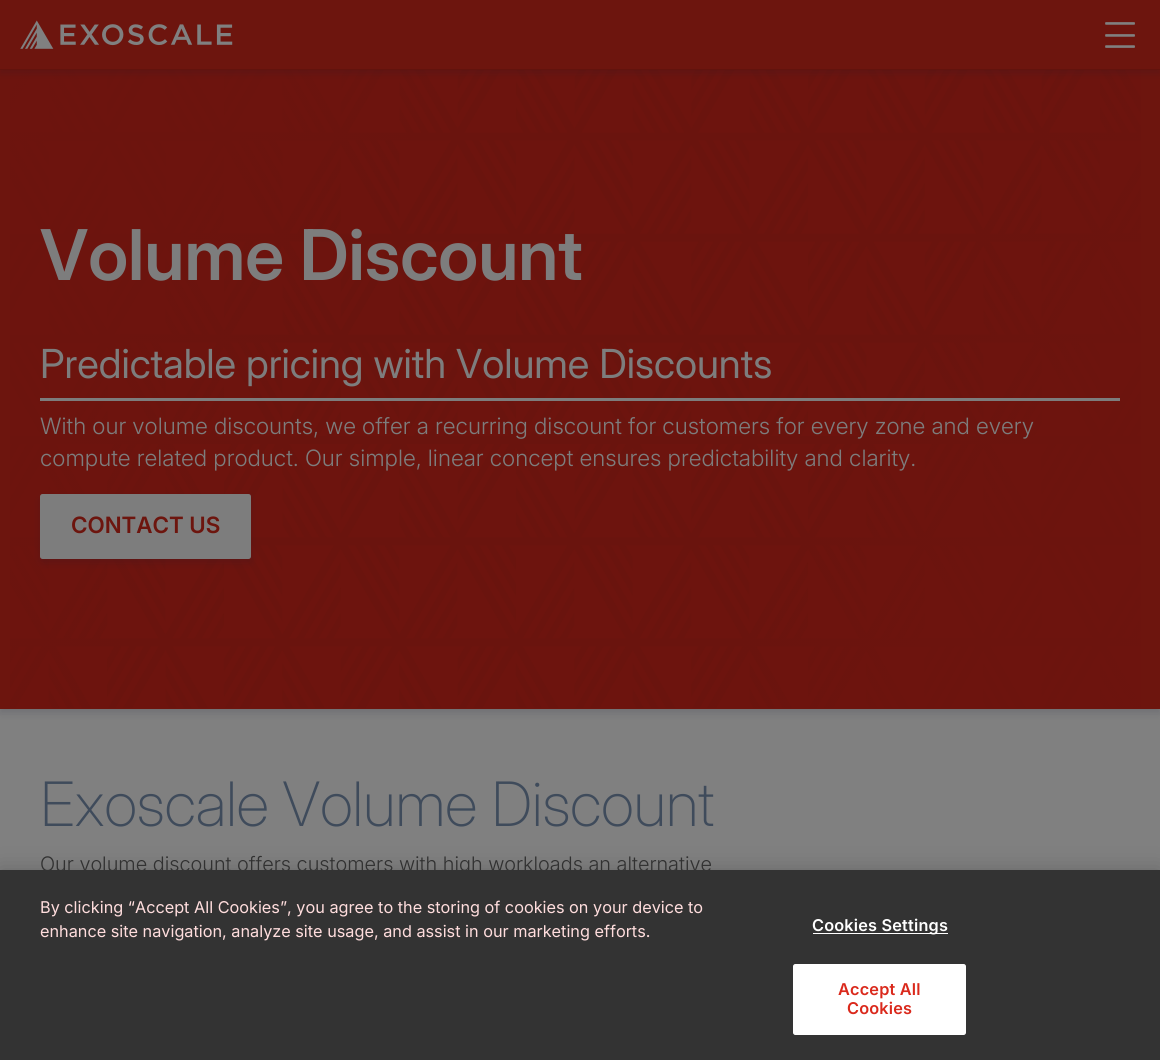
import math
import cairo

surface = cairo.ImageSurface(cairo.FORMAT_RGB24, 1160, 1060)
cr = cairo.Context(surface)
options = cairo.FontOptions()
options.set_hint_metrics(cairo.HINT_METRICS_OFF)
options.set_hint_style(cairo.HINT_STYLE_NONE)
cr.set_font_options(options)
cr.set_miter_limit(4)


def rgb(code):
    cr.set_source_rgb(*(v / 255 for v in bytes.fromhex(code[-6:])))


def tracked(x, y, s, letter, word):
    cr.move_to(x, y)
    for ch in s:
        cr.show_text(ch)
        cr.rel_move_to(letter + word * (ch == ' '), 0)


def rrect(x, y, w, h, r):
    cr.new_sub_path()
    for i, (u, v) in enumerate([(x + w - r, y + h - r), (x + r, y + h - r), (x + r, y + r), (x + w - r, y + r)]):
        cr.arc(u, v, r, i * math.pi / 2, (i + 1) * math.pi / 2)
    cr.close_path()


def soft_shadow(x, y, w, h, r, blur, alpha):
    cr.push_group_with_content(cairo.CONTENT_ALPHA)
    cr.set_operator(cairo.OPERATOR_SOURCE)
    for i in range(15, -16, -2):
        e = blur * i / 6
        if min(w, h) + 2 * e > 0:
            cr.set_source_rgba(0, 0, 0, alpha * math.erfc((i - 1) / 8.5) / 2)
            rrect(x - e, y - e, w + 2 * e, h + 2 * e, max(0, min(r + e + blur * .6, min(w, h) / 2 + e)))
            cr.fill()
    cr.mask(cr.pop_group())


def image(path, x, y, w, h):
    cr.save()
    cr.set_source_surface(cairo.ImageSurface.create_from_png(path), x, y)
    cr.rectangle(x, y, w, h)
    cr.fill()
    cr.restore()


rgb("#808080")
cr.paint()
rgb("#191932")
soft_shadow(0, 74, 1160, 639, 0, 4, 0.16)
rgb("#6d150e")
cr.rectangle(0, 70, 1160, 639)
cr.fill()
image("img/3.png", 10, 70, 1131, 638)
rgb("#191932")
soft_shadow(0, 4, 1160, 70, 0, 4, 0.16)
rgb("#6d150e")
cr.rectangle(0, 0, 1160, 69)
cr.fill()
rgb("#62130d")
cr.rectangle(0, 69, 1160, 1)
cr.fill()
image("img/1.png", 20, 20, 213, 29)
image("img/2.png", 1105, 22, 30, 26)
rgb("#7d7d7d")
cr.rectangle(40, 398, 1080, 3)
cr.fill()
rgb("#191932")
soft_shadow(40, 498, 211, 65, 2.5, 4, 0.16)
rgb("#7d7d7d")
rrect(40, 494, 211, 65, 2.5)
cr.fill()
rgb("#000000")
soft_shadow(0, 870, 1160, 190, 0, 11, 0.2)
cr.select_font_face("Inter SemiBold")
cr.set_font_size(70)
rgb("#7d7d7d")
cr.move_to(40, 280)
cr.show_text("Volume Discount")
cr.select_font_face("Inter")
cr.set_font_size(40)
cr.move_to(40, 378)
cr.show_text("Predictable pricing with Volume Discounts")
cr.select_font_face("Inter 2 Light")
cr.set_font_size(22.5)
cr.move_to(40, 434)
cr.show_text("With our volume discounts, we offer a recurring discount for customers for every zone and every")
cr.move_to(40, 466)
cr.show_text("compute related product. Our simple, linear concept ensures predictability and clarity.")
cr.select_font_face("Inter 2 SemiBold")
rgb("#6d150e")
cr.move_to(71, 533)
cr.show_text("CONTACT US")
cr.select_font_face("Inter ExtraLight")
cr.set_font_size(61.25)
rgb("#3f4b5b")
cr.move_to(40, 826)
cr.show_text("Exoscale Volume Discount")
cr.select_font_face("Inter Light")
cr.set_font_size(20)
rgb("#313131")
cr.move_to(40, 871)
cr.show_text("Our volume discount offers customers with high workloads an alternative")
rgb("#333333")
cr.rectangle(0, 870, 1160, 190)
cr.fill()
cr.select_font_face("Inter 2")
cr.set_font_size(16.25)
rgb("#ffdddd")
cr.move_to(40, 913)
cr.show_text("By clicking “Accept All Cookies”, you agree to the storing of cookies on your device to")
cr.move_to(40, 937)
cr.show_text("enhance site navigation, analyze site usage, and assist in our marketing efforts.")
rgb("#ffffff")
cr.rectangle(813, 933, 135, 1)
cr.fill()
cr.select_font_face("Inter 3 SemiBold")
tracked(812, 931, "Cookies Settings", 0.2, 0)
rrect(793.5, 964.5, 172, 70, 2)
cr.fill_preserve()
cr.set_line_width(1)
cr.stroke()
rgb("#da291c")
tracked(838, 995, "Accept All", 0.2, 0)
tracked(847, 1014, "Cookies", 0.2, 0)
surface.write_to_png("page.png")
